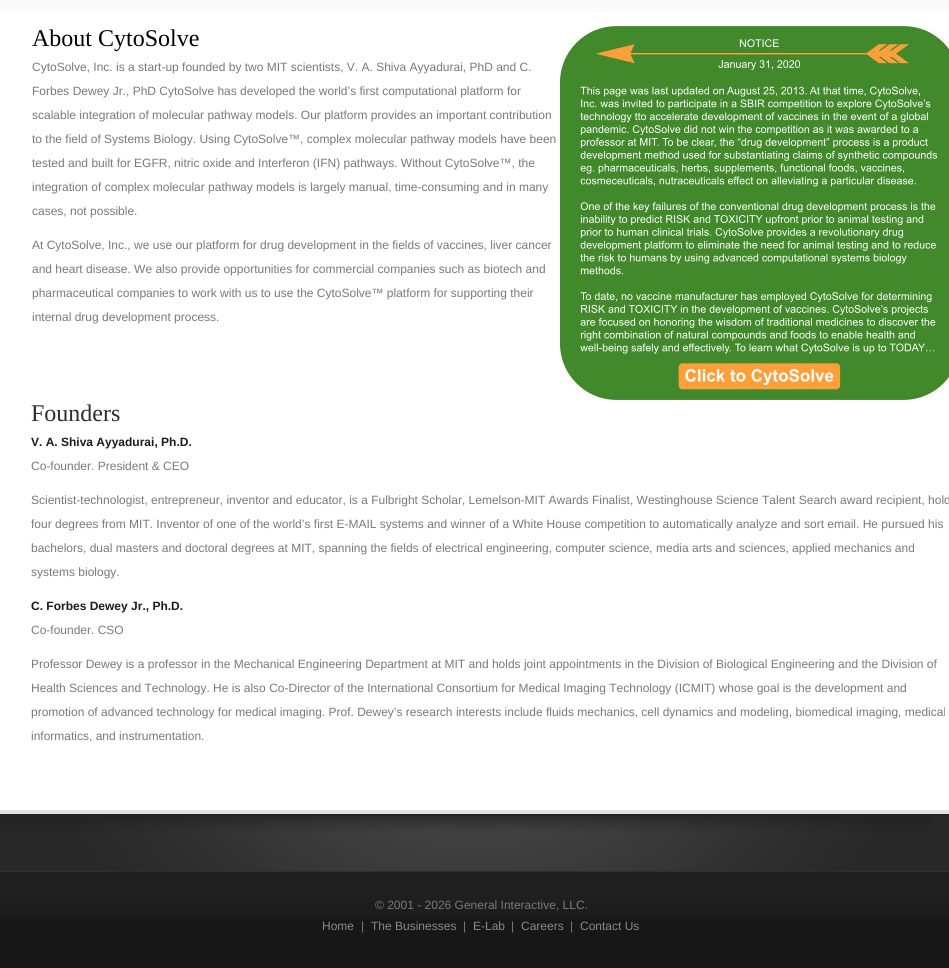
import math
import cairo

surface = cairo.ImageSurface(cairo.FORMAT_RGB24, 949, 968)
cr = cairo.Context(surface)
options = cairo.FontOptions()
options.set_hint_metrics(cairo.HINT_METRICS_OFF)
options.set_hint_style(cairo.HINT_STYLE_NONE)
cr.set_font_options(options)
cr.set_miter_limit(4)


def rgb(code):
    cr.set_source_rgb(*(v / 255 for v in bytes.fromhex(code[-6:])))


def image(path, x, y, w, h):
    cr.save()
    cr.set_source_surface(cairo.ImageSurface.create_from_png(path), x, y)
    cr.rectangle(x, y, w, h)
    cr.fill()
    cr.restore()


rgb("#171717")
cr.paint()
rgb("#ffffff")
cr.rectangle(0, 11, 949, 799)
cr.fill()
rgb("#fafafa")
cr.rectangle(0, 0, 949, 11)
cr.fill()
image("img/1.png", 560, 26, 389, 374)
for x, y, w, h, color in [
    (0, 817, 949, 54, "#282828"),
    (0, 814, 949, 3, "#232323"),
    (0, 810, 949, 4, "#e2e2e2"),
]:
    rgb(color)
    cr.rectangle(x, y, w, h)
    cr.fill()
image("img/2.png", 1, 816, 930, 55)
image("img/3.png", 0, 872, 949, 45)
rgb("#2f2f2f")
cr.rectangle(0, 871, 949, 1)
cr.fill()
cr.select_font_face("Liberation Serif")
cr.set_font_size(24)
rgb("#000000")
cr.move_to(32, 46)
cr.show_text("About CytoSolve")
cr.select_font_face("Liberation Sans")
cr.set_font_size(12)
rgb("#797979")
for x, y, s in [
    (32, 71, "CytoSolve, Inc. is a start-up founded by two MIT scientists, V. A. Shiva Ayyadurai, PhD and C."),
    (32, 95, "Forbes Dewey Jr., PhD CytoSolve has developed the world’s first computational platform for"),
    (32, 119, "scalable integration of molecular pathway models. Our platform provides an important contribution"),
    (32, 143, "to the field of Systems Biology. Using CytoSolve™, complex molecular pathway models have been"),
    (32, 167, "tested and built for EGFR, nitric oxide and Interferon (IFN) pathways. Without CytoSolve™, the"),
    (32, 191, "integration of complex molecular pathway models is largely manual, time-consuming and in many"),
    (32, 215, "cases, not possible."),
    (32, 249, "At CytoSolve, Inc., we use our platform for drug development in the fields of vaccines, liver cancer"),
    (32, 273, "and heart disease. We also provide opportunities for commercial companies such as biotech and"),
    (32, 297, "pharmaceutical companies to work with us to use the CytoSolve™ platform for supporting their"),
    (32, 321, "internal drug development process."),
]:
    cr.move_to(x, y)
    cr.show_text(s)
cr.select_font_face("Liberation Serif")
cr.set_font_size(24)
rgb("#2d2d2d")
cr.move_to(31, 421)
cr.show_text("Founders")
cr.select_font_face("Liberation Sans", cairo.FONT_SLANT_NORMAL, cairo.FONT_WEIGHT_BOLD)
cr.set_font_size(12)
rgb("#1c1c1c")
cr.move_to(31, 446)
cr.show_text("V. A. Shiva Ayyadurai, Ph.D.")
cr.select_font_face("Liberation Sans")
rgb("#797979")
for x, y, s in [
    (31, 470, "Co-founder. President & CEO"),
    (31, 504, "Scientist-technologist, entrepreneur, inventor and educator, is a Fulbright Scholar, Lemelson-MIT Awards Finalist, Westinghouse Science Talent Search award recipient, hold"),
    (31, 528, "four degrees from MIT. Inventor of one of the world’s first E-MAIL systems and winner of a White House competition to automatically analyze and sort email. He pursued his"),
    (31, 552, "bachelors, dual masters and doctoral degrees at MIT, spanning the fields of electrical engineering, computer science, media arts and sciences, applied mechanics and"),
    (31, 576, "systems biology."),
]:
    cr.move_to(x, y)
    cr.show_text(s)
cr.select_font_face("Liberation Sans", cairo.FONT_SLANT_NORMAL, cairo.FONT_WEIGHT_BOLD)
rgb("#1c1c1c")
cr.move_to(31, 610)
cr.show_text("C. Forbes Dewey Jr., Ph.D.")
cr.select_font_face("Liberation Sans")
rgb("#797979")
for x, y, s in [
    (31, 634, "Co-founder. CSO"),
    (31, 668, "Professor Dewey is a professor in the Mechanical Engineering Department at MIT and holds joint appointments in the Division of Biological Engineering and the Division of"),
    (31, 692, "Health Sciences and Technology. He is also Co-Director of the International Consortium for Medical Imaging Technology (ICMIT) whose goal is the development and"),
    (31, 716, "promotion of advanced technology for medical imaging. Prof. Dewey’s research interests include fluids mechanics, cell dynamics and modeling, biomedical imaging, medical"),
    (31, 740, "informatics, and instrumentation."),
    (375, 909, "© 2001 - 2026 General Interactive, LLC."),
]:
    cr.move_to(x, y)
    cr.show_text(s)
rgb("#8a8989")
cr.move_to(322, 930)
cr.show_text("Home")
rgb("#797979")
cr.move_to(361, 930)
cr.show_text("|")
rgb("#8a8989")
cr.move_to(371, 930)
cr.show_text("The Businesses")
rgb("#797979")
cr.move_to(463, 930)
cr.show_text("|")
rgb("#8a8989")
cr.move_to(473, 930)
cr.show_text("E-Lab")
rgb("#797979")
cr.move_to(511, 930)
cr.show_text("|")
rgb("#8a8989")
cr.move_to(521, 930)
cr.show_text("Careers")
rgb("#797979")
cr.move_to(570, 930)
cr.show_text("|")
rgb("#8a8989")
cr.move_to(580, 930)
cr.show_text("Contact Us")
surface.write_to_png("page.png")
